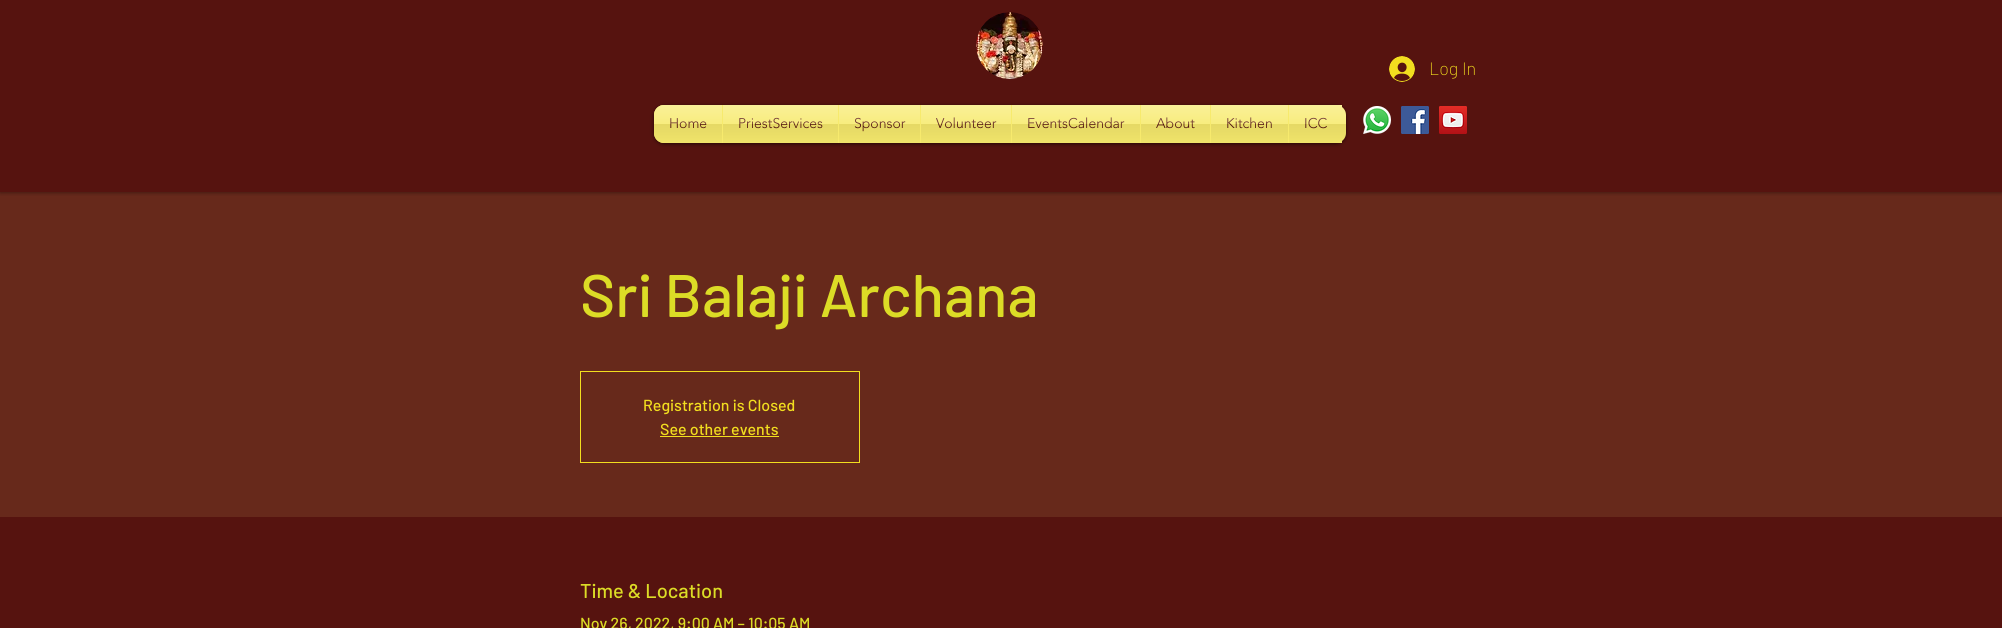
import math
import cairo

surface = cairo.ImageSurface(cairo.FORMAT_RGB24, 2002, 628)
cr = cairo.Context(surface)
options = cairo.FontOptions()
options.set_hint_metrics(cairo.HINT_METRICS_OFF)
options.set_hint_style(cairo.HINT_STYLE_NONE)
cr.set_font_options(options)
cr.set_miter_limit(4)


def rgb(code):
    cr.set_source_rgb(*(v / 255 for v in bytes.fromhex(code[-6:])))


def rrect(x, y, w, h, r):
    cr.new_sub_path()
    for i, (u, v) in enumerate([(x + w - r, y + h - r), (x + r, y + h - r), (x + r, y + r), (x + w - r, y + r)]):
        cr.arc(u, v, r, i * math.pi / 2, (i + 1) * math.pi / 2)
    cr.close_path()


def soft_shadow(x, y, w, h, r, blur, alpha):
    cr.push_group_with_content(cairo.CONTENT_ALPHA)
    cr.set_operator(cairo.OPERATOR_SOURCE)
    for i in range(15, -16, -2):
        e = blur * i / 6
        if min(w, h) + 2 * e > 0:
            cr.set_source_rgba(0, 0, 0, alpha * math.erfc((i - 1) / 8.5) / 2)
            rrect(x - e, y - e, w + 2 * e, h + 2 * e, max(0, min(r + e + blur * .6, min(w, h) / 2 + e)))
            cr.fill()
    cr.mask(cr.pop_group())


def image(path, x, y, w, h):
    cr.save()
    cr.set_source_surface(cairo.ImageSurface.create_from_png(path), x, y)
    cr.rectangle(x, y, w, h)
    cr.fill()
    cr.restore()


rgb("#56130f")
cr.paint()
rgb("#67291b")
cr.rectangle(0, 192, 2002, 325)
cr.fill()
cr.save()
cr.rectangle(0, 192, 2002, 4)
cr.clip()
rgb("#000000")
soft_shadow(0, 0, 2002, 192, 0, 2.5, 0.5)
cr.restore()
image("img/1.png", 976, 12, 67, 67)
image("img/2.png", 1389, 56, 26, 26)
rgb("#000000")
soft_shadow(654, 106, 692, 38, 10, 2, 0.6)
rgb("#f7ea6d")
rrect(654, 105, 692, 38, 10)
cr.fill()
image("img/3.png", 654, 105, 692, 38)
cr.new_path()
cr.move_to(664, 105)
cr.line_to(722, 105)
cr.line_to(722, 143)
cr.line_to(664, 143)
cr.curve_to(658.5, 143, 654, 138.5, 654, 133)
cr.line_to(654, 115)
cr.curve_to(654, 109.5, 658.5, 105, 664, 105)
cr.close_path()
cr.fill()
cr.rectangle(722, 105, 620, 38)
cr.fill()
image("img/12.png", 1363, 106, 28, 28)
image("img/13.png", 1401, 106, 28, 28)
image("img/14.png", 1439, 106, 28, 28)
cr.rectangle(580.5, 371.5, 279, 91)
rgb("#f2de1f")
cr.set_line_width(1)
cr.stroke()
cr.rectangle(660, 436, 119, 1)
cr.fill()
cr.select_font_face("Barlow ExtraLight")
cr.set_font_size(18)
cr.move_to(1429, 75)
cr.show_text("Log In")
cr.select_font_face("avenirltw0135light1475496 Light")
cr.set_font_size(14)
rgb("#56130f")
cr.move_to(669, 128)
cr.show_text("Home")
image("img/4.png", 654, 105, 68, 38)
cr.move_to(738, 128)
cr.show_text("PriestServices")
image("img/5.png", 723, 105, 115, 38)
cr.move_to(854, 128)
cr.show_text("Sponsor")
image("img/6.png", 839, 105, 81, 38)
cr.move_to(936, 128)
cr.show_text("Volunteer")
image("img/7.png", 921, 105, 90, 38)
cr.move_to(1027, 128)
cr.show_text("EventsCalendar")
image("img/8.png", 1012, 105, 128, 38)
cr.move_to(1156, 128)
cr.show_text("About")
image("img/9.png", 1141, 105, 69, 38)
cr.move_to(1226, 128)
cr.show_text("Kitchen")
image("img/10.png", 1211, 105, 77, 38)
cr.move_to(1304, 128)
cr.show_text("ICC")
image("img/11.png", 1289, 105, 53, 38)
cr.select_font_face("Barlow Medium")
cr.set_font_size(60)
rgb("#dcdc26")
cr.move_to(580, 317)
cr.show_text("Sri Balaji Archana")
cr.set_font_size(16)
rgb("#f2de1f")
cr.move_to(643, 411)
cr.show_text("Registration is Closed")
cr.move_to(660, 435)
cr.show_text("See other events")
cr.set_font_size(20)
rgb("#dcdc26")
cr.move_to(580, 598)
cr.show_text("Time & Location")
cr.set_font_size(16)
cr.move_to(580, 629)
cr.show_text("Nov 26, 2022, 9:00 AM – 10:05 AM")
surface.write_to_png("page.png")
